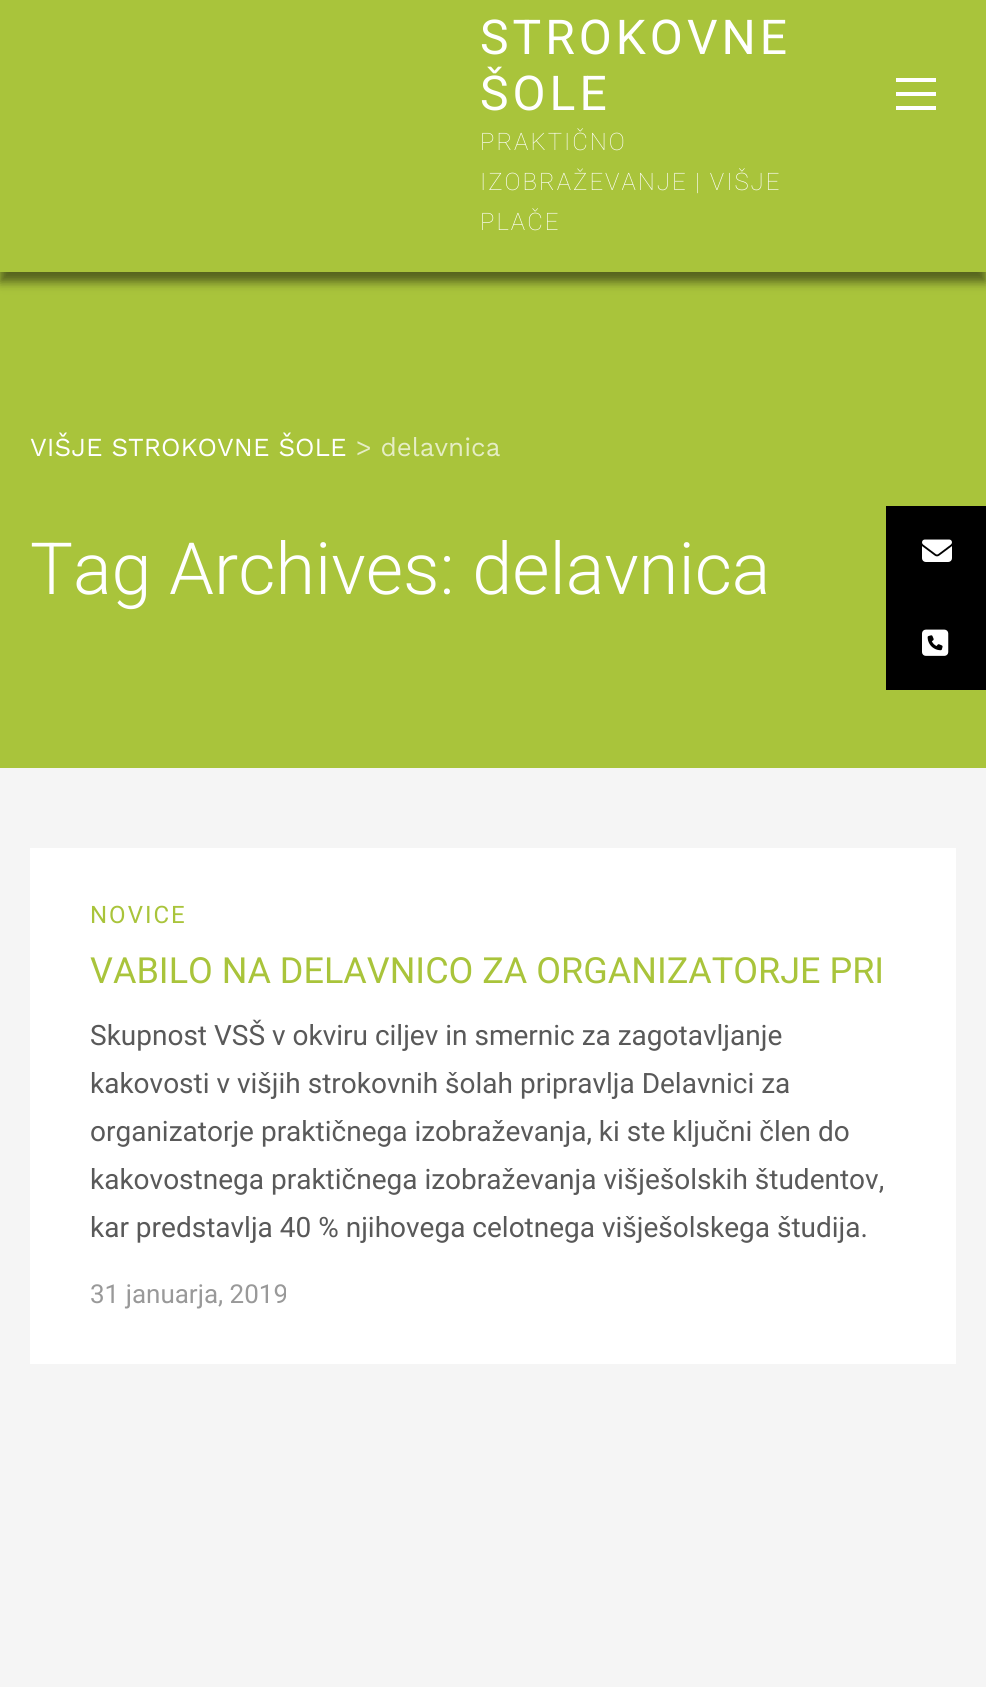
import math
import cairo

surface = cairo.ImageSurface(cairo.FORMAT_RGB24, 986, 1687)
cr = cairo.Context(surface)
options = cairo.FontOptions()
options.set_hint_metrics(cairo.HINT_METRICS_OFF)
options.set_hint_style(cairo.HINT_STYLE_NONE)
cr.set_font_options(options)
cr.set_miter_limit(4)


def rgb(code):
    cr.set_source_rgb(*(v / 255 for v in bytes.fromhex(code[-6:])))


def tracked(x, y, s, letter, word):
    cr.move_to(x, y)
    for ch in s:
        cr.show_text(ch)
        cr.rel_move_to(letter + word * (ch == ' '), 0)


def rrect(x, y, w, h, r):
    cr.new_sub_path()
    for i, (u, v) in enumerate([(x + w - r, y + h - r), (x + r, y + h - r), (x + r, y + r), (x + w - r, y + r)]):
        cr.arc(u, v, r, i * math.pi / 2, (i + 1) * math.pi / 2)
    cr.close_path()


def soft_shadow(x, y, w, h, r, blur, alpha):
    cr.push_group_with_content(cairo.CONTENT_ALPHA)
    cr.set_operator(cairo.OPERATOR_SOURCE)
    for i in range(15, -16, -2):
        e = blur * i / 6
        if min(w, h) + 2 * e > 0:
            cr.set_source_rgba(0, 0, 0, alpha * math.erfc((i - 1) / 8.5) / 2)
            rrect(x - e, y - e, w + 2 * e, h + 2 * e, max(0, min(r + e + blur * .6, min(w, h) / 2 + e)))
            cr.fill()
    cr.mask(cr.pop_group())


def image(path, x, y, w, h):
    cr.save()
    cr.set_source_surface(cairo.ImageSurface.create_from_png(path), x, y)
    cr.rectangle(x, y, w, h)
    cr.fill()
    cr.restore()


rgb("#f5f5f5")
cr.paint()
rgb("#a9c43b")
cr.rectangle(0, 272, 986, 496)
cr.fill()
rgb("#000000")
soft_shadow(0, -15, 986, 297, 0, 5, 0.5)
for x, y, w, h, color in [
    (0, 0, 986, 272, "#a9c43b"),
    (896, 92, 40, 4, "#ffffff"),
    (896, 78, 40, 4, "#ffffff"),
    (896, 106, 40, 4, "#ffffff"),
    (30, 848, 926, 516, "#ffffff"),
    (886, 506, 100, 184, "#000000"),
]:
    rgb(color)
    cr.rectangle(x, y, w, h)
    cr.fill()
image("img/1.png", 922, 539, 30, 23)
image("img/2.png", 922, 629, 27, 27)
cr.select_font_face("Roboto")
cr.set_font_size(48)
rgb("#ffffff")
tracked(480, 54, "STROKOVNE", 4, 0)
tracked(480, 110, "ŠOLE", 4, 0)
cr.select_font_face("Roboto Thin")
cr.set_font_size(24)
for x, y, s in [
    (480, 150, "PRAKTIČNO"),
    (480, 190, "IZOBRAŽEVANJE | VIŠJE"),
    (480, 230, "PLAČE"),
]:
    tracked(x, y, s, 2, 0)
cr.select_font_face("Work Sans")
cr.set_font_size(26)
cr.move_to(30, 456)
cr.show_text("VIŠJE STROKOVNE ŠOLE")
rgb("#e5edc4")
cr.move_to(356, 456)
cr.show_text("> delavnica")
cr.select_font_face("Roboto Light")
cr.set_font_size(72)
rgb("#ffffff")
cr.move_to(30, 594)
cr.show_text("Tag Archives: delavnica")
cr.select_font_face("Roboto")
cr.set_font_size(24)
rgb("#a9c43b")
tracked(90, 923, "NOVICE", 2, 0)
cr.set_font_size(36)
cr.move_to(90, 983)
cr.show_text("VABILO NA DELAVNICO ZA ORGANIZATORJE PRI")
cr.set_font_size(28)
rgb("#595959")
for x, y, s in [
    (90, 1045, "Skupnost VSŠ v okviru ciljev in smernic za zagotavljanje"),
    (90, 1093, "kakovosti v višjih strokovnih šolah pripravlja Delavnici za"),
    (90, 1141, "organizatorje praktičnega izobraževanja, ki ste ključni člen do"),
    (90, 1189, "kakovostnega praktičnega izobraževanja višješolskih študentov,"),
    (90, 1237, "kar predstavlja 40 % njihovega celotnega višješolskega študija."),
]:
    cr.move_to(x, y)
    cr.show_text(s)
cr.set_font_size(26)
rgb("#999999")
cr.move_to(90, 1303)
cr.show_text("31 januarja, 2019")
surface.write_to_png("page.png")
